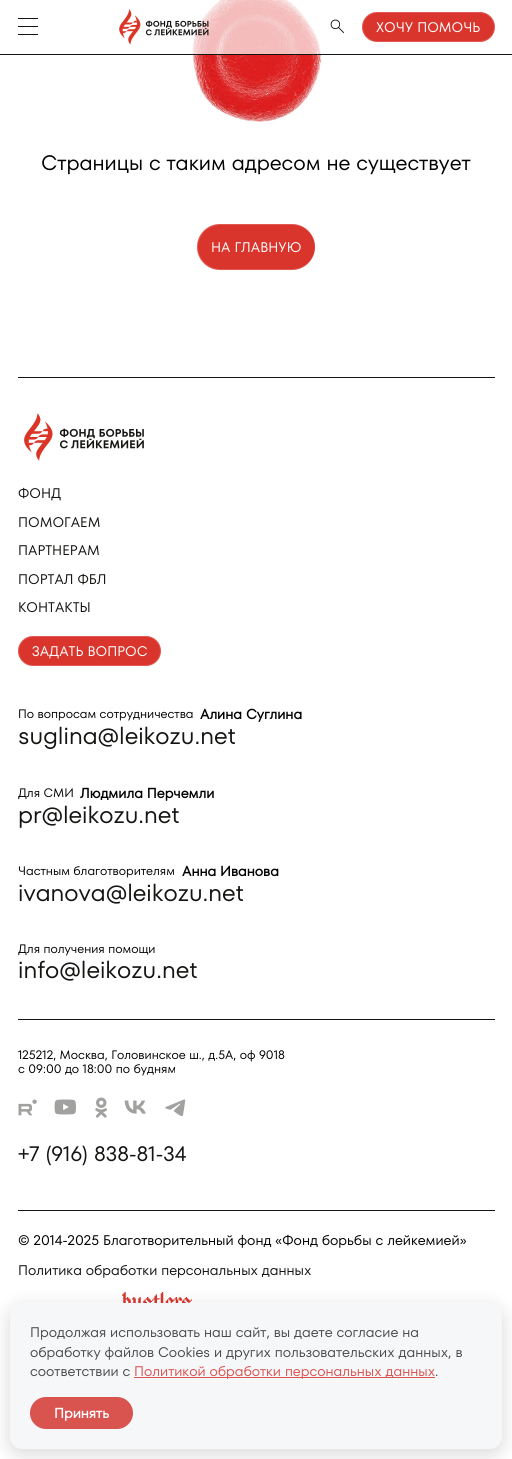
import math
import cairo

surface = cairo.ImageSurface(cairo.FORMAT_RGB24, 512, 1459)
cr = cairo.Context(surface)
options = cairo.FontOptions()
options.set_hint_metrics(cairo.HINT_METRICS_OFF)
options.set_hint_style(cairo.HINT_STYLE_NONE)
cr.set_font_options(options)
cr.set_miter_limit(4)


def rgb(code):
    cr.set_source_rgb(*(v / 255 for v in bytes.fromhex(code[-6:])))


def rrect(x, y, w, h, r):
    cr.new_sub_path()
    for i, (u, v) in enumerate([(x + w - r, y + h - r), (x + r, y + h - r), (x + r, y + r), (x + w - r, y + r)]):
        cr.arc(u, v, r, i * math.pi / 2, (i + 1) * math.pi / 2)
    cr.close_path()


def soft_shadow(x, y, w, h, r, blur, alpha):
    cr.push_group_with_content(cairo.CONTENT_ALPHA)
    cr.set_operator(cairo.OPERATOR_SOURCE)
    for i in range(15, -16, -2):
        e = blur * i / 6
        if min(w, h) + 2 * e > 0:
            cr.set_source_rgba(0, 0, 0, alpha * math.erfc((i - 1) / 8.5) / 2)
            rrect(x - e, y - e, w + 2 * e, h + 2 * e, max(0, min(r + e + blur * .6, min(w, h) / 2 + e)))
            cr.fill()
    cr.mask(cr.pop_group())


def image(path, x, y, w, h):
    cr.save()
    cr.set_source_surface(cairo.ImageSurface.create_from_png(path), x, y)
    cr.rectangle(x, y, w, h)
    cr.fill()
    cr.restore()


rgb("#ffffff")
cr.paint()
image("img/3.png", 191, 0, 131, 125)
cr.set_source_rgba(1, 1, 1, 0.7)
cr.rectangle(191, 0, 130, 54)
cr.fill()
rgb("#141412")
cr.rectangle(0, 54, 512, 1)
cr.rectangle(18, 18, 20, 1)
cr.rectangle(18, 26, 20, 1)
cr.rectangle(18, 34, 20, 1)
cr.fill()
image("img/1.png", 119, 9, 90, 36)
image("img/2.png", 330, 19, 15, 14)
rgb("#da352c")
rrect(362, 12, 133, 30, 15)
cr.fill()
rrect(362.5, 12.5, 132, 29, 14.5)
cr.set_source_rgba(1, 1, 1, 0.18)
cr.set_line_width(1)
cr.stroke()
rgb("#da352c")
rrect(197, 224, 118, 46, 23)
cr.fill()
cr.set_source_rgba(1, 1, 1, 0.18)
cr.set_fill_rule(cairo.FILL_RULE_EVEN_ODD)
cr.new_path()
cr.move_to(220, 224)
cr.line_to(292, 224)
cr.curve_to(305, 224, 315, 234, 315, 247)
cr.curve_to(315, 260, 305, 270, 292, 270)
cr.line_to(220, 270)
cr.curve_to(207, 270, 197, 260, 197, 247)
cr.curve_to(197, 234, 207, 224, 220, 224)
cr.close_path()
cr.move_to(220, 225)
cr.line_to(292, 225)
cr.curve_to(305, 225, 315, 235, 315, 247)
cr.curve_to(315, 259, 305, 269, 292, 269)
cr.line_to(220, 269)
cr.curve_to(208, 269, 198, 259, 198, 247)
cr.curve_to(198, 235, 208, 225, 220, 225)
cr.close_path()
cr.fill()
rgb("#141412")
cr.rectangle(18, 377, 477, 1)
cr.fill()
image("img/4.png", 24, 413, 120, 48)
rgb("#da352c")
rrect(18, 636, 143, 30, 15)
cr.fill()
rrect(18.5, 636.5, 142, 29, 14.5)
cr.set_source_rgba(1, 1, 1, 0.18)
cr.stroke()
rgb("#141412")
cr.rectangle(18, 1019, 477, 1)
cr.fill()
image("img/5.png", 18, 1099, 19, 17)
image("img/6.png", 54, 1099, 22, 16)
image("img/7.png", 95, 1097, 12, 21)
image("img/8.png", 124, 1100, 22, 14)
image("img/9.png", 165, 1099, 21, 17)
cr.rectangle(18, 1210, 477, 1)
cr.fill()
image("img/10.png", 122, 1292, 70, 11)
rgb("#000000")
soft_shadow(10, 1308, 492, 146, 12, 10, 0.15)
rgb("#f6f7f9")
rrect(10, 1303, 492, 146, 12)
cr.fill()
rgb("#d9534f")
cr.rectangle(134, 1377, 301, 1)
cr.fill()
rrect(30, 1397, 103, 32, 16)
cr.fill()
cr.select_font_face("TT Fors")
cr.set_font_size(14)
rgb("#ffffff")
cr.move_to(376, 32)
cr.show_text("ХОЧУ ПОМОЧЬ")
cr.set_font_size(21)
rgb("#000000")
cr.move_to(41, 170)
cr.show_text("Страницы с таким адресом не существует")
cr.set_font_size(14)
rgb("#ffffff")
cr.move_to(211, 252)
cr.show_text("НА ГЛАВНУЮ")
rgb("#141412")
for x, y, s in [
    (18, 498, "ФОНД"),
    (18, 527, "ПОМОГАЕМ"),
    (18, 555, "ПАРТНЕРАМ"),
    (18, 584, "ПОРТАЛ ФБЛ"),
    (18, 612, "КОНТАКТЫ"),
]:
    cr.move_to(x, y)
    cr.show_text(s)
rgb("#ffffff")
cr.move_to(32, 656)
cr.show_text("ЗАДАТЬ ВОПРОС")
cr.set_font_size(12.3)
rgb("#000000")
cr.move_to(18, 718)
cr.show_text("По вопросам сотрудничества")
cr.select_font_face("TT Fors", cairo.FONT_SLANT_NORMAL, cairo.FONT_WEIGHT_BOLD)
cr.set_font_size(14)
cr.move_to(200, 719)
cr.show_text("Алина Суглина")
cr.select_font_face("TT Fors")
cr.set_font_size(24)
rgb("#141412")
cr.move_to(18, 744)
cr.show_text("suglina@leikozu.net")
cr.set_font_size(12.3)
rgb("#000000")
cr.move_to(18, 797)
cr.show_text("Для СМИ")
cr.select_font_face("TT Fors", cairo.FONT_SLANT_NORMAL, cairo.FONT_WEIGHT_BOLD)
cr.set_font_size(14)
cr.move_to(80, 798)
cr.show_text("Людмила Перчемли")
cr.select_font_face("TT Fors")
cr.set_font_size(24)
rgb("#141412")
cr.move_to(18, 823)
cr.show_text("pr@leikozu.net")
cr.set_font_size(12.3)
rgb("#000000")
cr.move_to(18, 875)
cr.show_text("Частным благотворителям")
cr.select_font_face("TT Fors", cairo.FONT_SLANT_NORMAL, cairo.FONT_WEIGHT_BOLD)
cr.set_font_size(14)
cr.move_to(182, 876)
cr.show_text("Анна Иванова")
cr.select_font_face("TT Fors")
cr.set_font_size(24)
rgb("#141412")
cr.move_to(18, 901)
cr.show_text("ivanova@leikozu.net")
cr.set_font_size(12.3)
rgb("#000000")
cr.move_to(18, 953)
cr.show_text("Для получения помощи")
cr.set_font_size(24)
rgb("#141412")
cr.move_to(18, 978)
cr.show_text("info@leikozu.net")
cr.set_font_size(12.3)
rgb("#000000")
cr.move_to(18, 1059)
cr.show_text("125212, Москва, Головинское ш., д.5А, оф 9018")
cr.move_to(18, 1073)
cr.show_text("с 09:00 до 18:00 по будням")
cr.set_font_size(21)
rgb("#141412")
cr.move_to(18, 1161)
cr.show_text("+7 (916) 838-81-34")
cr.set_font_size(14)
rgb("#000000")
cr.move_to(18, 1245)
cr.show_text("© 2014-2025 Благотворительный фонд «Фонд борьбы с лейкемией»")
rgb("#141412")
cr.move_to(18, 1275)
cr.show_text("Политика обработки персональных данных")
rgb("#4a4a4a")
for x, y, s in [
    (30, 1337, "Продолжая использовать наш сайт, вы даете согласие на"),
    (30, 1357, "обработку файлов Cookies и других пользовательских данных, в"),
    (30, 1376, "соответствии с"),
]:
    cr.move_to(x, y)
    cr.show_text(s)
rgb("#d9534f")
cr.move_to(134, 1376)
cr.show_text("Политикой обработки персональных данных")
rgb("#4a4a4a")
cr.move_to(435, 1376)
cr.show_text(".")
cr.select_font_face("TT Fors", cairo.FONT_SLANT_NORMAL, cairo.FONT_WEIGHT_BOLD)
rgb("#ffffff")
cr.move_to(54, 1418)
cr.show_text("Принять")
surface.write_to_png("page.png")
